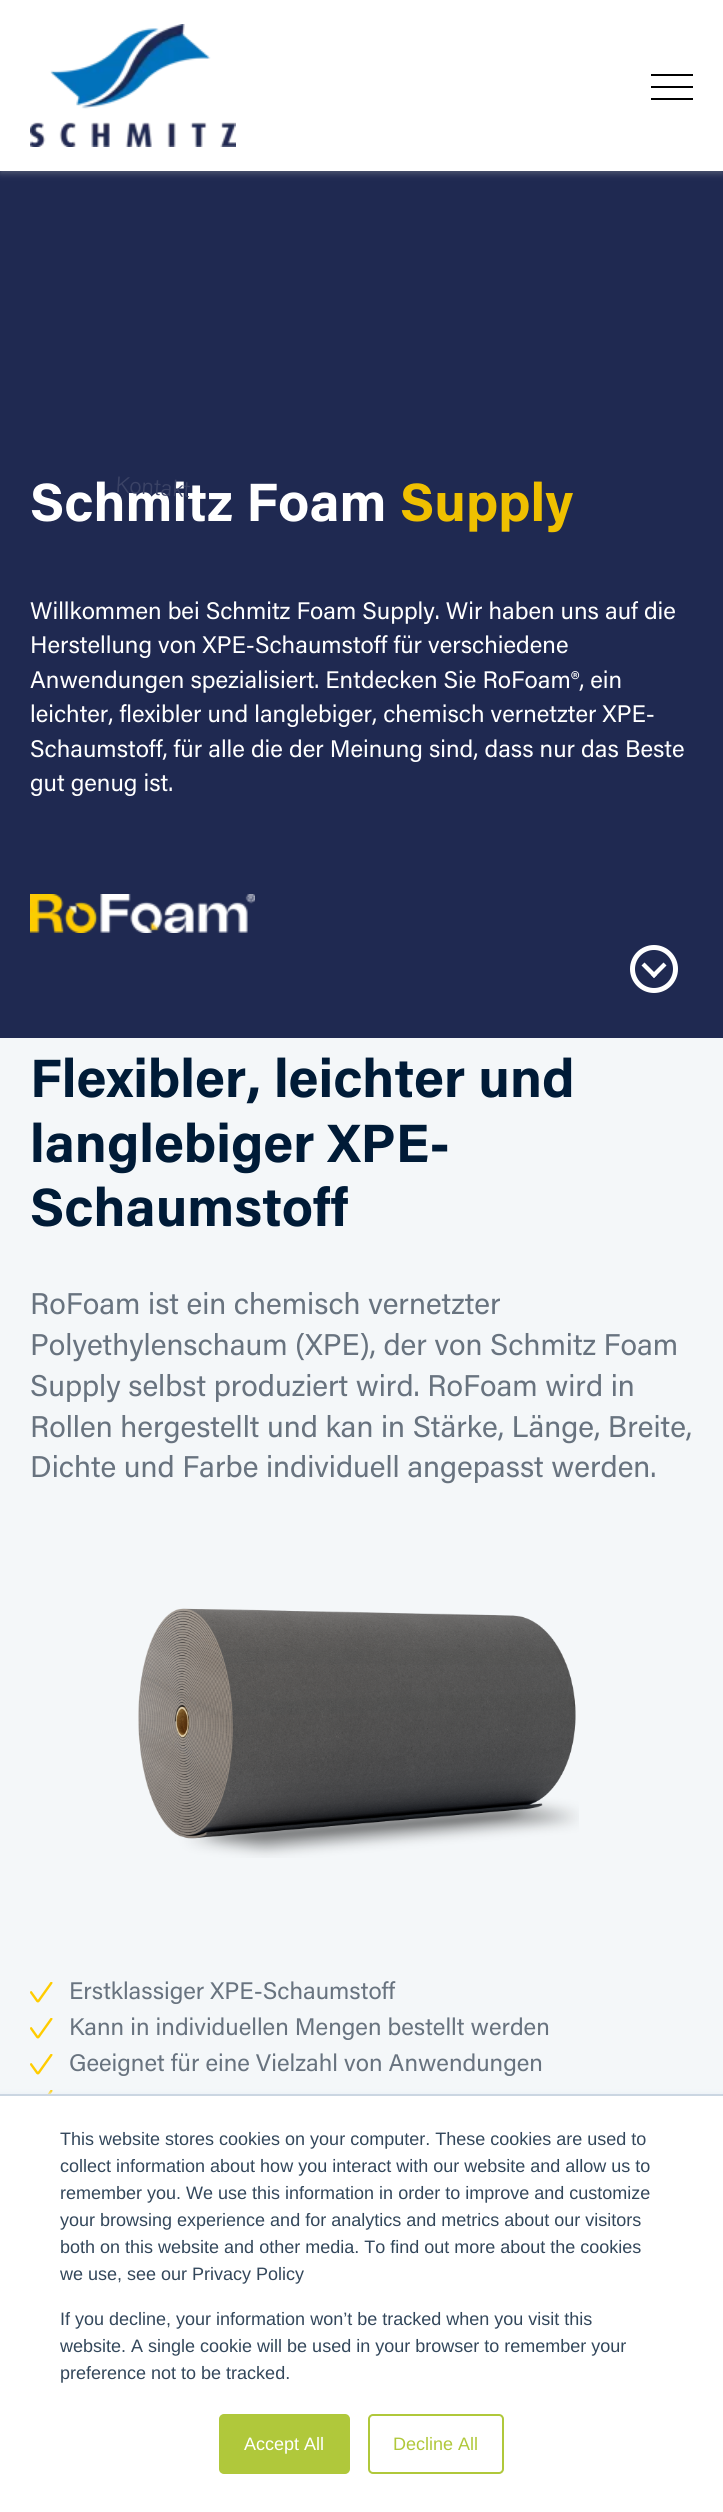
import math
import cairo

surface = cairo.ImageSurface(cairo.FORMAT_RGB24, 723, 2512)
cr = cairo.Context(surface)
options = cairo.FontOptions()
options.set_hint_metrics(cairo.HINT_METRICS_OFF)
options.set_hint_style(cairo.HINT_STYLE_NONE)
cr.set_font_options(options)
cr.set_miter_limit(4)


def rgb(code):
    cr.set_source_rgb(*(v / 255 for v in bytes.fromhex(code[-6:])))


def rrect(x, y, w, h, r):
    cr.new_sub_path()
    for i, (u, v) in enumerate([(x + w - r, y + h - r), (x + r, y + h - r), (x + r, y + r), (x + w - r, y + r)]):
        cr.arc(u, v, r, i * math.pi / 2, (i + 1) * math.pi / 2)
    cr.close_path()


def soft_shadow(x, y, w, h, r, blur, alpha):
    cr.push_group_with_content(cairo.CONTENT_ALPHA)
    cr.set_operator(cairo.OPERATOR_SOURCE)
    for i in range(15, -16, -2):
        e = blur * i / 6
        if min(w, h) + 2 * e > 0:
            cr.set_source_rgba(0, 0, 0, alpha * math.erfc((i - 1) / 8.5) / 2)
            rrect(x - e, y - e, w + 2 * e, h + 2 * e, max(0, min(r + e + blur * .6, min(w, h) / 2 + e)))
            cr.fill()
    cr.mask(cr.pop_group())


def image(path, x, y, w, h):
    cr.save()
    cr.set_source_surface(cairo.ImageSurface.create_from_png(path), x, y)
    cr.rectangle(x, y, w, h)
    cr.fill()
    cr.restore()


rgb("#f4f7f9")
cr.paint()
rgb("#1f2951")
cr.rectangle(0, 171, 723, 867)
cr.fill()
rgb("#9da1a4")
soft_shadow(0, 3, 723, 171, 0, 3, 0.35)
rgb("#ffffff")
cr.rectangle(0, 0, 723, 171)
cr.fill()
image("img/1.png", 30, 24, 206, 123)
for x, y, w, h, color in [
    (651, 86, 42, 2, "#000000"),
    (651, 74, 42, 2, "#000000"),
    (651, 98, 42, 2, "#000000"),
]:
    rgb(color)
    cr.rectangle(x, y, w, h)
    cr.fill()
image("img/2.png", 30, 894, 225, 39)
cr.arc(654, 969, 21.5, 0, 2 * math.pi)
rgb("#ffffff")
cr.set_line_width(5)
cr.stroke()
cr.new_path()
cr.move_to(651, 975)
cr.line_to(663.5, 962.5)
cr.line_to(666.5, 965.5)
cr.line_to(654, 978)
cr.close_path()
cr.fill()
cr.new_path()
cr.move_to(641.5, 965.5)
cr.line_to(644.5, 962.5)
cr.line_to(657, 975)
cr.line_to(654, 978)
cr.close_path()
cr.fill()
image("img/3.png", 138, 1608, 441, 250)
image("img/4.png", 30, 1982, 23, 21)
image("img/4.png", 30, 2018, 23, 21)
image("img/4.png", 30, 2054, 23, 21)
image("img/5.png", 47, 2090, 6, 4)
rgb("#eaf0f6")
soft_shadow(0, 2093, 723, 418, 0, 2, 1)
rgb("#ffffff")
cr.rectangle(0, 2096, 723, 416)
cr.fill()
rgb("#cbd6e2")
cr.rectangle(0, 2094, 723, 2)
cr.fill()
rgb("#b0c83b")
rrect(220, 2415, 129, 58, 4)
cr.fill_preserve()
cr.set_line_width(2)
cr.stroke()
rrect(369, 2415, 134, 58, 4)
cr.stroke()
cr.select_font_face("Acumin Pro", cairo.FONT_SLANT_NORMAL, cairo.FONT_WEIGHT_BOLD)
cr.set_font_size(54)
rgb("#ffffff")
cr.move_to(30, 521)
cr.show_text("Schmitz Foam")
rgb("#efc000")
cr.move_to(400, 521)
cr.show_text("Supply")
rgb("#1f2951")
cr.new_path()
cr.move_to(112, 449)
cr.line_to(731, 493)
cr.line_to(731, 495)
cr.line_to(112, 450)
cr.close_path()
cr.fill()
cr.select_font_face("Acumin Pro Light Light")
cr.set_font_size(22.5)
rgb("#3b4366")
cr.save()
cr.translate(115, 492)
cr.rotate(4.1 * math.pi / 180)
cr.move_to(0, 0)
cr.show_text("Kontakt")
cr.restore()
cr.select_font_face("Acumin Pro")
cr.set_font_size(24)
rgb("#ffffff")
for x, y, s in [
    (30, 619, "Willkommen bei Schmitz Foam Supply. Wir haben uns auf die"),
    (30, 653, "Herstellung von XPE-Schaumstoff für verschiedene"),
    (30, 688, "Anwendungen spezialisiert. Entdecken Sie RoFoam®, ein"),
    (30, 722, "leichter, flexibler und langlebiger, chemisch vernetzter XPE-"),
    (30, 757, "Schaumstoff, für alle die der Meinung sind, dass nur das Beste"),
    (30, 791, "gut genug ist."),
]:
    cr.move_to(x, y)
    cr.show_text(s)
cr.select_font_face("Acumin Pro", cairo.FONT_SLANT_NORMAL, cairo.FONT_WEIGHT_BOLD)
cr.set_font_size(54)
rgb("#001b37")
for x, y, s in [
    (30, 1097, "Flexibler, leichter und"),
    (30, 1162, "langlebiger XPE-"),
    (30, 1226, "Schaumstoff"),
]:
    cr.move_to(x, y)
    cr.show_text(s)
cr.select_font_face("Acumin Pro")
cr.set_font_size(30)
rgb("#68737f")
for x, y, s in [
    (30, 1314, "RoFoam ist ein chemisch vernetzter"),
    (30, 1355, "Polyethylenschaum (XPE), der von Schmitz Foam"),
    (30, 1396, "Supply selbst produziert wird. RoFoam wird in"),
    (30, 1437, "Rollen hergestellt und kan in Stärke, Länge, Breite,"),
    (30, 1477, "Dichte und Farbe individuell angepasst werden."),
]:
    cr.move_to(x, y)
    cr.show_text(s)
cr.set_font_size(24)
for x, y, s in [
    (69, 1999, "Erstklassiger XPE-Schaumstoff"),
    (69, 2035, "Kann in individuellen Mengen bestellt werden"),
    (69, 2071, "Geeignet für eine Vielzahl von Anwendungen"),
]:
    cr.move_to(x, y)
    cr.show_text(s)
cr.select_font_face("Liberation Sans")
cr.set_font_size(18)
rgb("#33475b")
for x, y, s in [
    (60, 2145, "This website stores cookies on your computer. These cookies are used to"),
    (60, 2172, "collect information about how you interact with our website and allow us to"),
    (60, 2199, "remember you. We use this information in order to improve and customize"),
    (60, 2226, "your browsing experience and for analytics and metrics about our visitors"),
    (60, 2253, "both on this website and other media. To find out more about the cookies"),
    (60, 2280, "we use, see our Privacy Policy"),
    (60, 2325, "If you decline, your information won’t be tracked when you visit this"),
    (60, 2352, "website. A single cookie will be used in your browser to remember your"),
    (60, 2379, "preference not to be tracked."),
]:
    cr.move_to(x, y)
    cr.show_text(s)
rgb("#ffffff")
cr.move_to(244, 2450)
cr.show_text("Accept All")
rgb("#b0c83b")
cr.move_to(393, 2450)
cr.show_text("Decline All")
surface.write_to_png("page.png")
